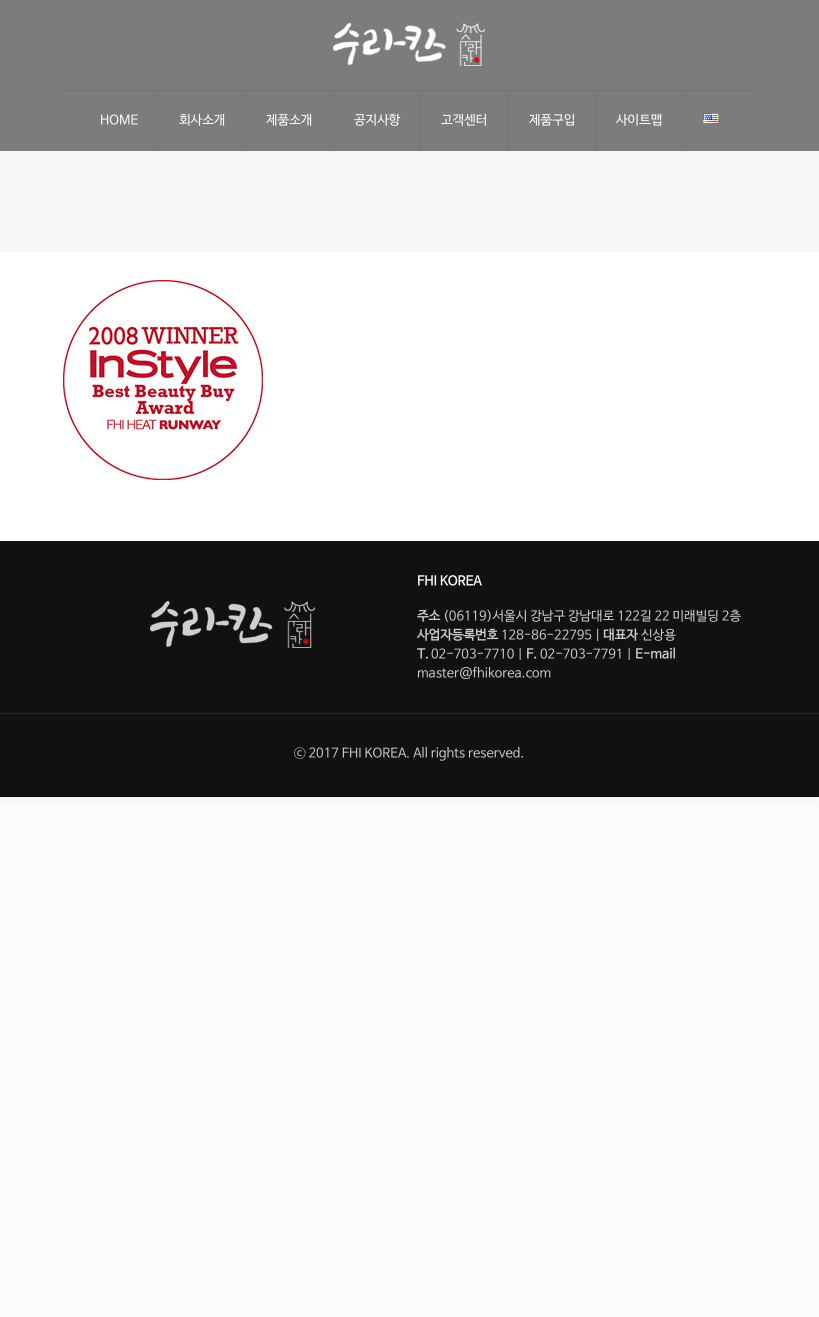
import math
import cairo

surface = cairo.ImageSurface(cairo.FORMAT_RGB24, 819, 1317)
cr = cairo.Context(surface)
options = cairo.FontOptions()
options.set_hint_metrics(cairo.HINT_METRICS_OFF)
options.set_hint_style(cairo.HINT_STYLE_NONE)
cr.set_font_options(options)
cr.set_miter_limit(4)


def rgb(code):
    cr.set_source_rgb(*(v / 255 for v in bytes.fromhex(code[-6:])))


def rrect(x, y, w, h, r):
    cr.new_sub_path()
    for i, (u, v) in enumerate([(x + w - r, y + h - r), (x + r, y + h - r), (x + r, y + r), (x + w - r, y + r)]):
        cr.arc(u, v, r, i * math.pi / 2, (i + 1) * math.pi / 2)
    cr.close_path()


def soft_shadow(x, y, w, h, r, blur, alpha):
    cr.push_group_with_content(cairo.CONTENT_ALPHA)
    cr.set_operator(cairo.OPERATOR_SOURCE)
    for i in range(15, -16, -2):
        e = blur * i / 6
        if min(w, h) + 2 * e > 0:
            cr.set_source_rgba(0, 0, 0, alpha * math.erfc((i - 1) / 8.5) / 2)
            rrect(x - e, y - e, w + 2 * e, h + 2 * e, max(0, min(r + e + blur * .6, min(w, h) / 2 + e)))
            cr.fill()
    cr.mask(cr.pop_group())


def image(path, x, y, w, h):
    cr.save()
    cr.set_source_surface(cairo.ImageSurface.create_from_png(path), x, y)
    cr.rectangle(x, y, w, h)
    cr.fill()
    cr.restore()


rgb("#fcfcfc")
cr.paint()
rgb("#000000")
soft_shadow(0, 0, 819, 797, 0, 7.5, 0.06)
for x, y, w, h, color in [
    (0, 250, 819, 291, "#ffffff"),
    (0, 0, 819, 151, "#7c7c7c"),
    (63, 90, 693, 1, "#727272"),
]:
    rgb(color)
    cr.rectangle(x, y, w, h)
    cr.fill()
image("img/1.png", 333, 23, 152, 43)
for x, y, w, h, color in [
    (158, 91, 1, 60, "#767676"),
    (245, 91, 1, 60, "#767676"),
    (333, 91, 1, 60, "#767676"),
    (420, 91, 1, 60, "#767676"),
    (508, 91, 1, 60, "#767676"),
    (595, 91, 1, 60, "#767676"),
    (682, 91, 1, 60, "#767676"),
]:
    rgb(color)
    cr.rectangle(x, y, w, h)
    cr.fill()
image("img/2.png", 703, 113, 16, 11)
rgb("#f7f7f7")
cr.rectangle(0, 151, 819, 99)
cr.fill()
image("img/3.png", 0, 250, 819, 2)
image("img/4.png", 63, 280, 200, 200)
rgb("#111111")
cr.rectangle(0, 541, 819, 256)
cr.fill()
image("img/5.png", 150, 601, 165, 47)
rgb("#292929")
cr.rectangle(0, 713, 819, 1)
cr.fill()
cr.select_font_face("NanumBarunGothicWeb")
cr.set_font_size(13)
rgb("#ffffff")
for x, y, s in [
    (100, 124, "HOME"),
    (179, 124, "회사소개"),
    (266, 124, "제품소개"),
    (354, 124, "공지사항"),
    (441, 124, "고객센터"),
    (529, 124, "제품구입"),
    (616, 124, "사이트맵"),
]:
    cr.move_to(x, y)
    cr.show_text(s)
cr.select_font_face("NanumBarunGothicWeb", cairo.FONT_SLANT_NORMAL, cairo.FONT_WEIGHT_BOLD)
cr.move_to(417, 585)
cr.show_text("FHI KOREA")
rgb("#cccccc")
cr.move_to(417, 620)
cr.show_text("주소")
cr.select_font_face("NanumBarunGothicWeb")
cr.move_to(443, 620)
cr.show_text("(06119)서울시 강남구 강남대로 122길 22 미래빌딩 2층")
cr.select_font_face("NanumBarunGothicWeb", cairo.FONT_SLANT_NORMAL, cairo.FONT_WEIGHT_BOLD)
cr.move_to(417, 639)
cr.show_text("사업자등록번호")
cr.select_font_face("NanumBarunGothicWeb")
cr.move_to(501, 639)
cr.show_text("128-86-22795 |")
cr.select_font_face("NanumBarunGothicWeb", cairo.FONT_SLANT_NORMAL, cairo.FONT_WEIGHT_BOLD)
cr.move_to(603, 639)
cr.show_text("대표자")
cr.select_font_face("NanumBarunGothicWeb")
cr.move_to(641, 639)
cr.show_text("신상용")
cr.select_font_face("NanumBarunGothicWeb", cairo.FONT_SLANT_NORMAL, cairo.FONT_WEIGHT_BOLD)
cr.move_to(417, 658)
cr.show_text("T.")
cr.select_font_face("NanumBarunGothicWeb")
cr.move_to(431, 658)
cr.show_text("02-703-7710 |")
cr.select_font_face("NanumBarunGothicWeb", cairo.FONT_SLANT_NORMAL, cairo.FONT_WEIGHT_BOLD)
cr.move_to(526, 658)
cr.show_text("F.")
cr.select_font_face("NanumBarunGothicWeb")
cr.move_to(540, 658)
cr.show_text("02-703-7791 |")
cr.select_font_face("NanumBarunGothicWeb", cairo.FONT_SLANT_NORMAL, cairo.FONT_WEIGHT_BOLD)
cr.move_to(635, 658)
cr.show_text("E-mail")
cr.select_font_face("NanumBarunGothicWeb")
cr.move_to(417, 677)
cr.show_text("master@fhikorea.com")
cr.move_to(294, 757)
cr.show_text("ⓒ 2017 FHI KOREA. All rights reserved.")
surface.write_to_png("page.png")
